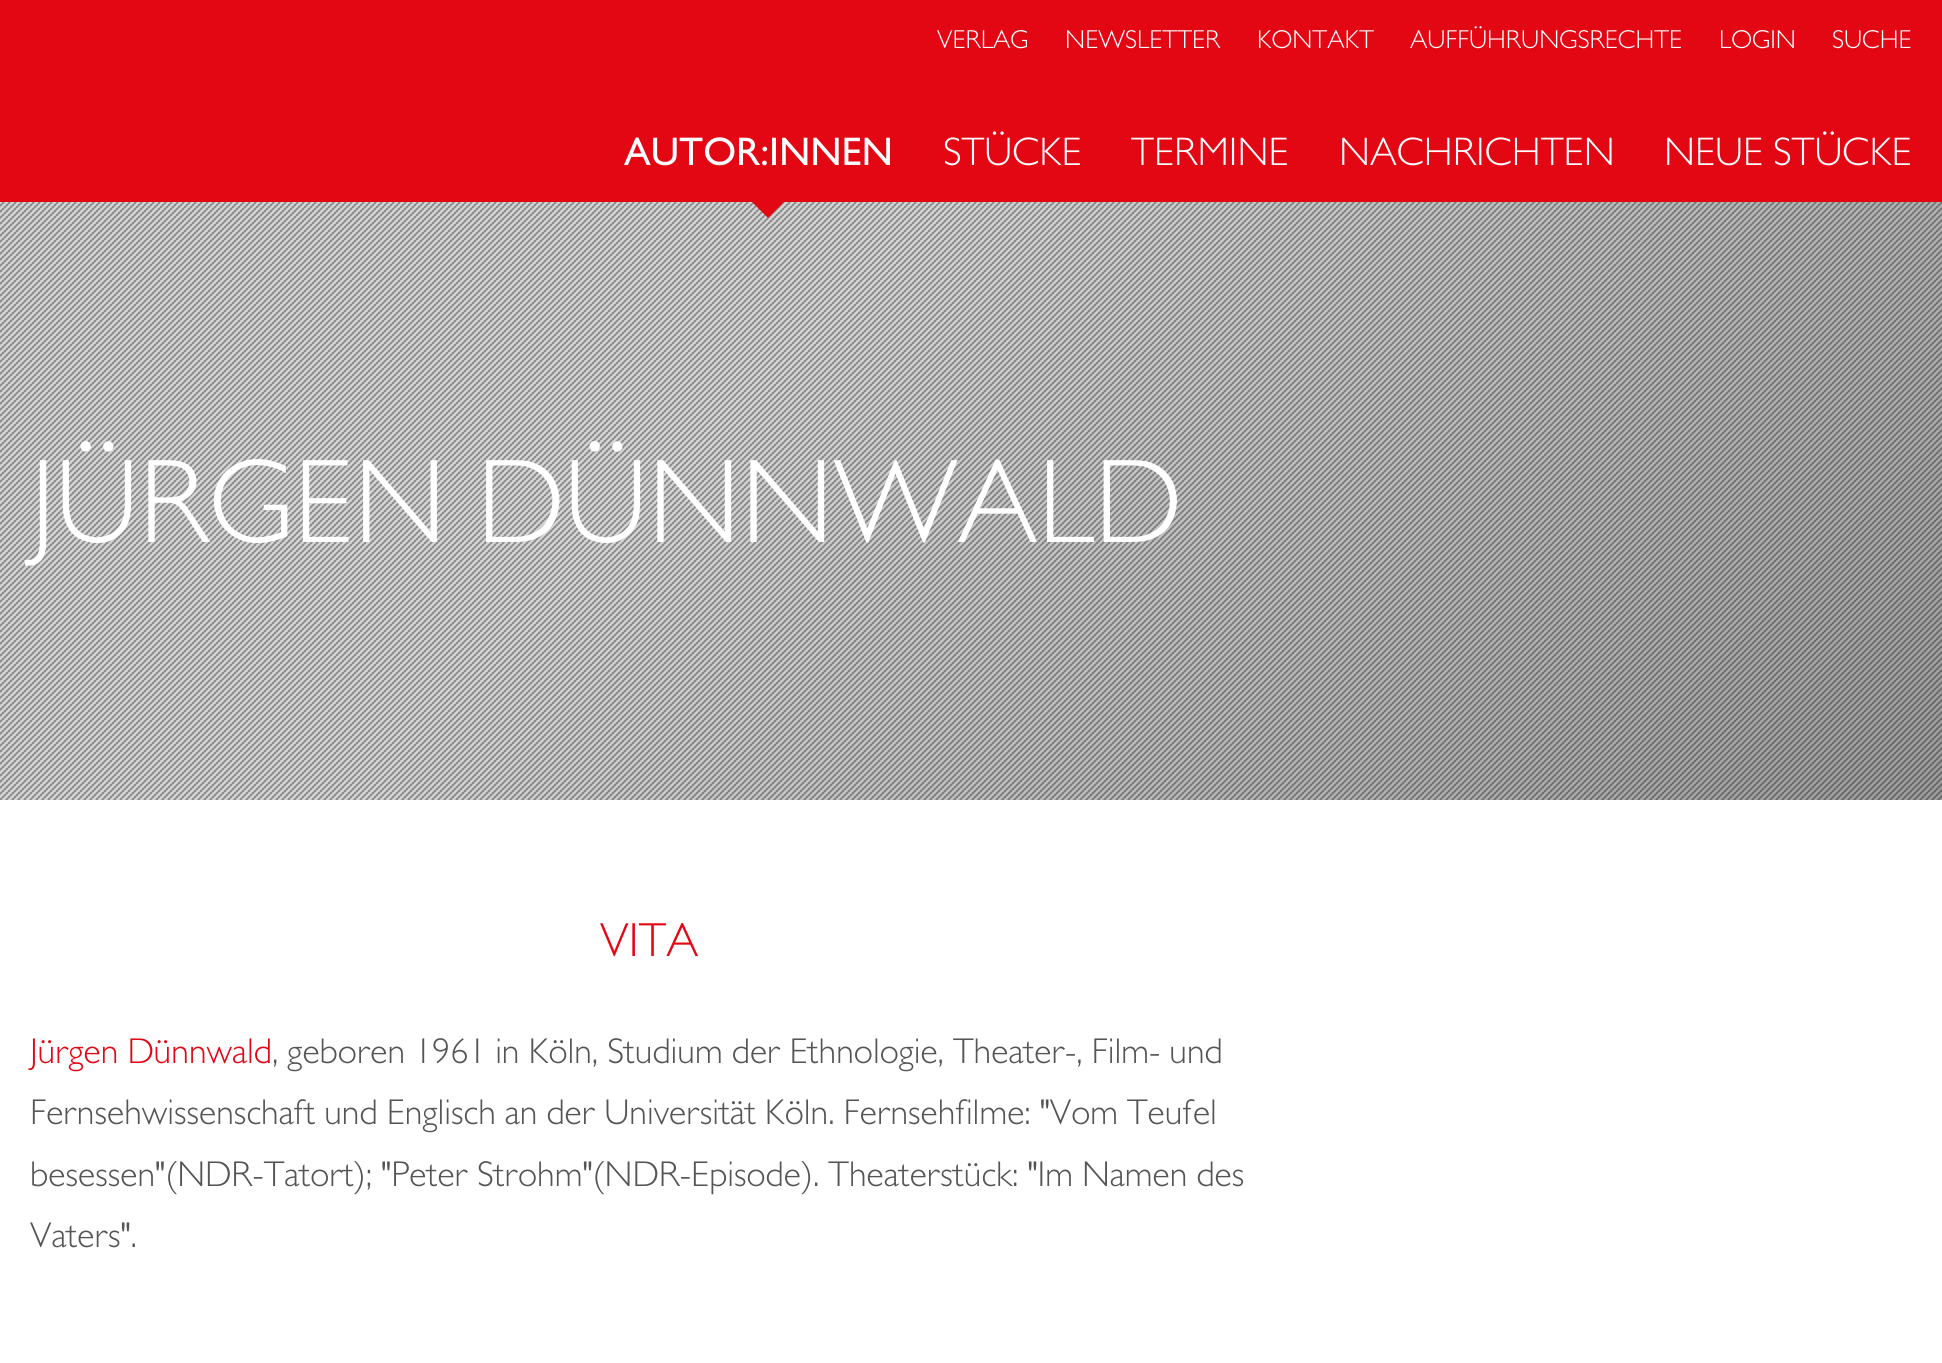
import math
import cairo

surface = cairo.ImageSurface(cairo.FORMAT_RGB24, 1942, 1363)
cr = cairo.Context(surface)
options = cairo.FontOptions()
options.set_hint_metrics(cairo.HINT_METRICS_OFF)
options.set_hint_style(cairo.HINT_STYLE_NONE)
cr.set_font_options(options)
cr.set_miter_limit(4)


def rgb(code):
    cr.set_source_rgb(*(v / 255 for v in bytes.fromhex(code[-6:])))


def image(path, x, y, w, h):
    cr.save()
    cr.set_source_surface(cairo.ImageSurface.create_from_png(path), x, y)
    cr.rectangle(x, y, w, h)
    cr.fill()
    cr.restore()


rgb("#ffffff")
cr.paint()
rgb("#e30613")
cr.rectangle(0, 0, 1942, 202)
cr.fill()
gradient = cairo.LinearGradient(335, -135, 1607, 1136)
gradient.add_color_stop_rgba(0, 1, 1, 1, 1)
gradient.add_color_stop_rgba(0.37, 1, 1, 1, 1)
gradient.add_color_stop_rgba(1, 0.733, 0.733, 0.733, 1)
cr.set_source(gradient)
cr.rectangle(401, 202, 1541, 598)
cr.fill()
image("img/1.png", 0, 202, 1942, 598)
rgb("#e30613")
cr.new_path()
cr.move_to(768, 218)
cr.line_to(788, 198)
cr.line_to(748, 198)
cr.close_path()
cr.fill()
cr.select_font_face("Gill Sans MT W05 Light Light")
cr.set_font_size(26)
rgb("#ffffff")
for x, y, s in [
    (937, 48, "VERLAG"),
    (1065, 48, "NEWSLETTER"),
    (1257, 48, "KONTAKT"),
    (1410, 48, "AUFFÜHRUNGSRECHTE"),
    (1719, 48, "LOGIN"),
    (1832, 48, "SUCHE"),
]:
    cr.move_to(x, y)
    cr.show_text(s)
cr.select_font_face("Gill Sans Medium")
cr.set_font_size(40)
cr.move_to(624, 165)
cr.show_text("AUTOR:INNEN")
cr.select_font_face("Gill Sans MT W05 Light Light")
for x, y, s in [
    (943, 165, "STÜCKE"),
    (1131, 165, "TERMINE"),
    (1339, 165, "NACHRICHTEN"),
    (1664, 165, "NEUE STÜCKE"),
]:
    cr.move_to(x, y)
    cr.show_text(s)
cr.set_font_size(120)
cr.move_to(30, 542)
cr.show_text("JÜRGEN DÜNNWALD")
cr.set_font_size(48)
rgb("#e30613")
cr.move_to(600, 956)
cr.show_text("VITA")
cr.set_font_size(36)
cr.move_to(30, 1063)
cr.show_text("Jürgen Dünnwald")
rgb("#555555")
for x, y, s in [
    (272, 1063, ", geboren 1961 in Köln, Studium der Ethnologie, Theater-, Film- und"),
    (30, 1124, "Fernsehwissenschaft und Englisch an der Universität Köln. Fernsehfilme: \"Vom Teufel"),
    (30, 1186, "besessen\"(NDR-Tatort); \"Peter Strohm\"(NDR-Episode). Theaterstück: \"Im Namen des"),
    (30, 1247, "Vaters\"."),
]:
    cr.move_to(x, y)
    cr.show_text(s)
surface.write_to_png("page.png")
